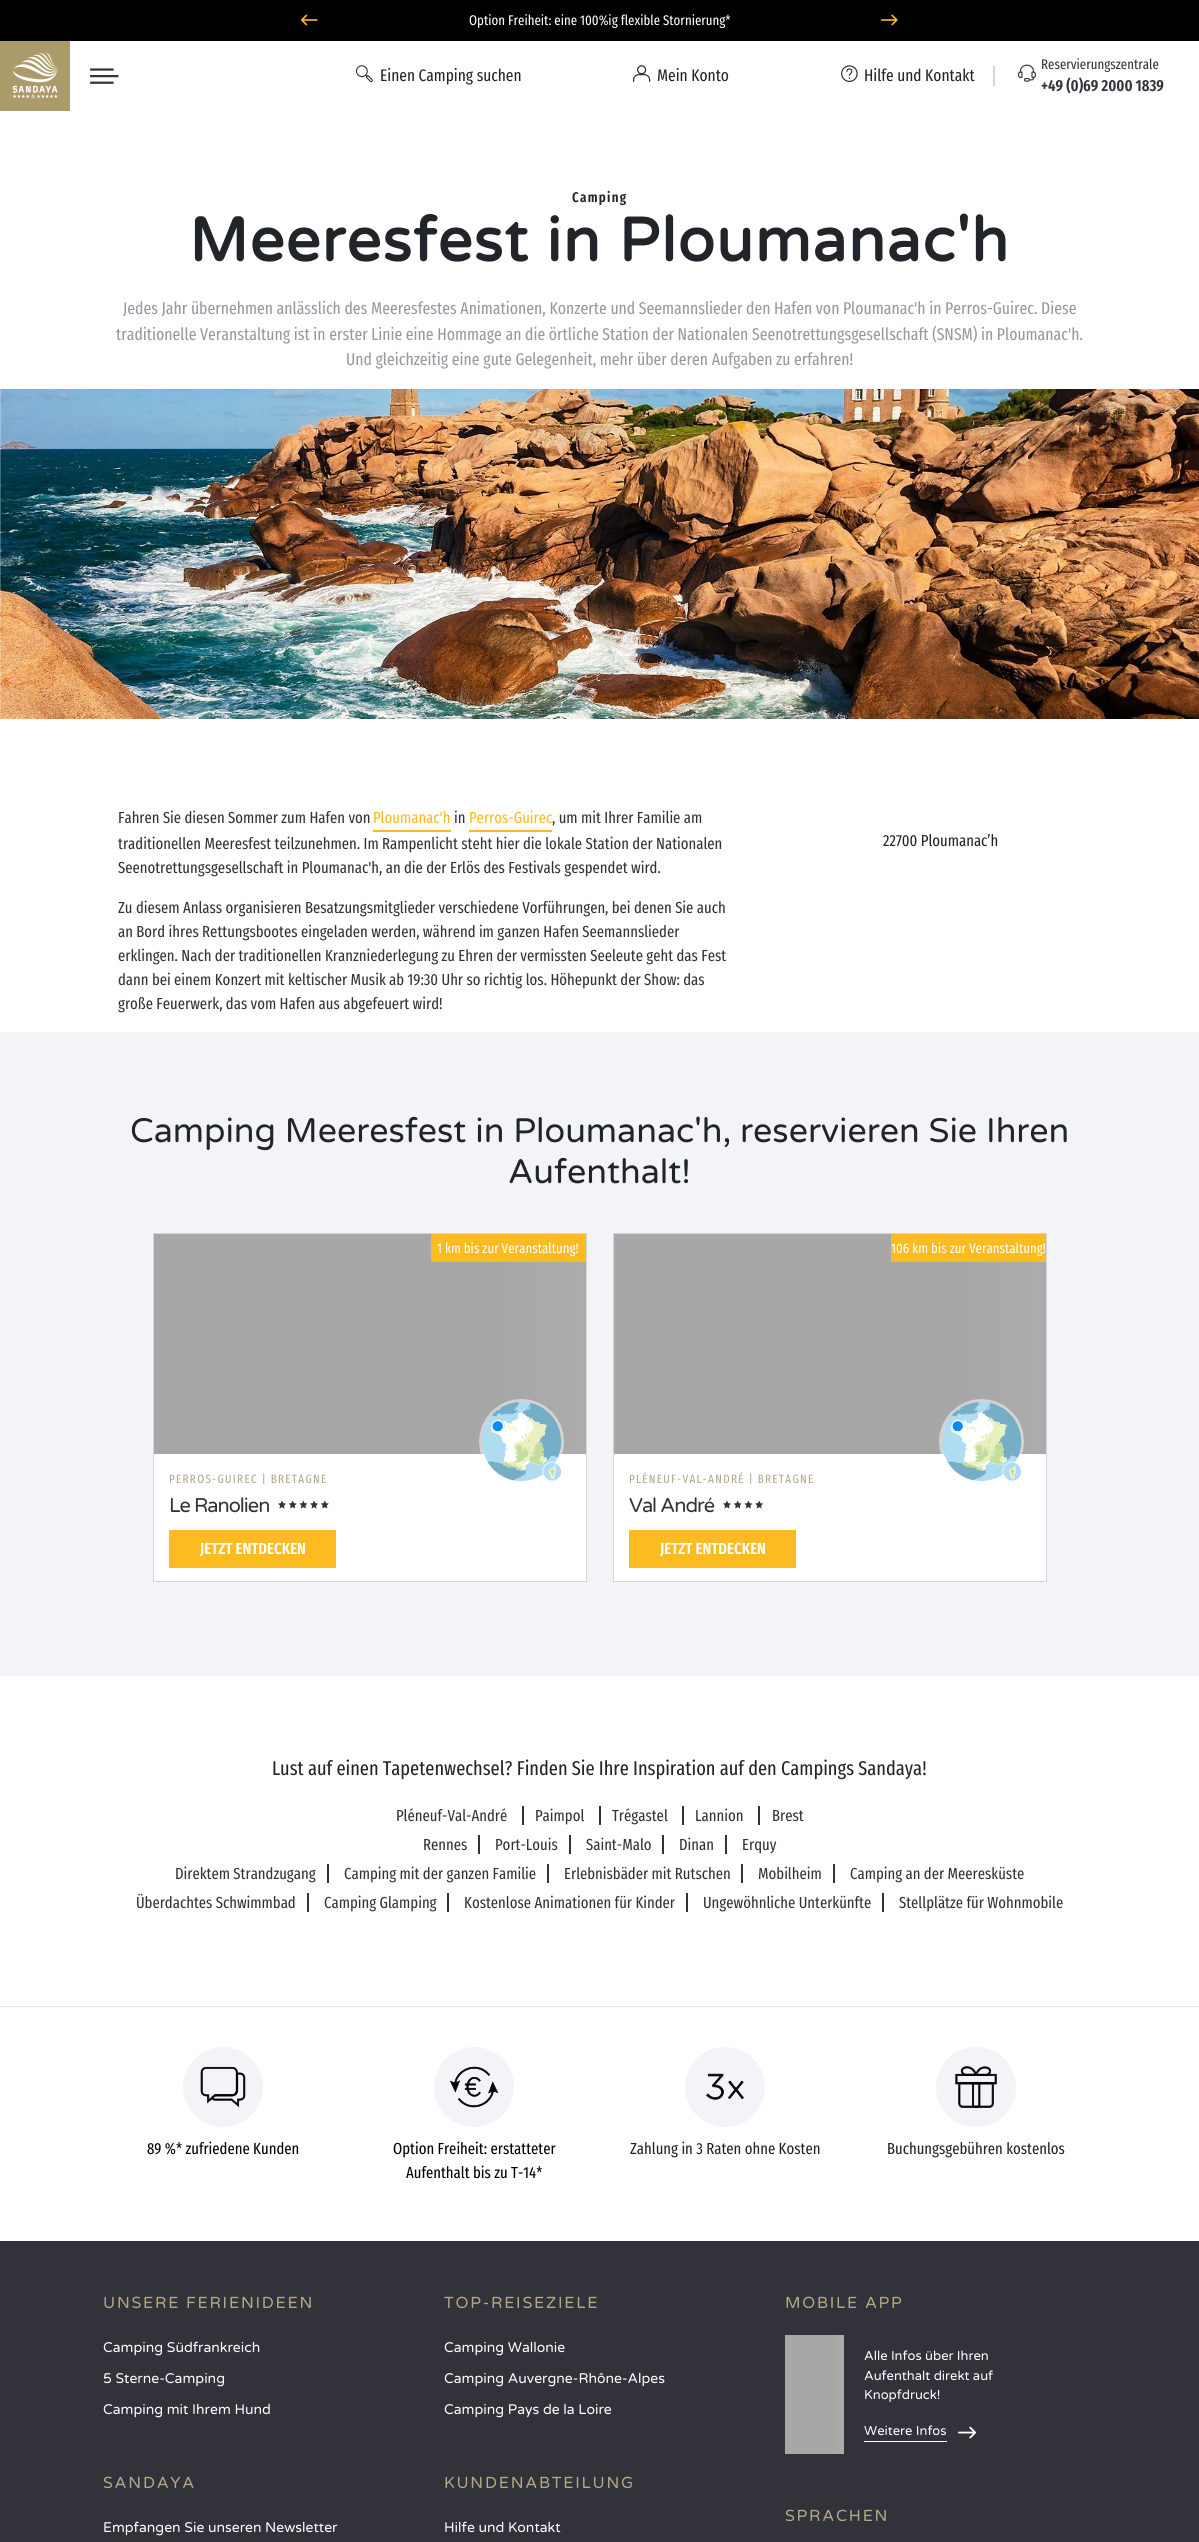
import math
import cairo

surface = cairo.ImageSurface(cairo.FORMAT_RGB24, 1199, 2542)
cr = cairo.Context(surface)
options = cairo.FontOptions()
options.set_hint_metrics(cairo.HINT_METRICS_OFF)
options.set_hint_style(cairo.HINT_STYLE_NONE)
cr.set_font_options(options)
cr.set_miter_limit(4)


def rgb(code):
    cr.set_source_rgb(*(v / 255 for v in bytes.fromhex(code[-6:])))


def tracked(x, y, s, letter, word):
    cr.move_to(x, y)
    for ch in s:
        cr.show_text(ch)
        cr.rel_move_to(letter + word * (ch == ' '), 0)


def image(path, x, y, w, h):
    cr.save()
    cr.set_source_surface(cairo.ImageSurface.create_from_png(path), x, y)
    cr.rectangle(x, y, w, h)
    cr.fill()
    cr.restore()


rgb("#ffffff")
cr.paint()
rgb("#000000")
cr.rectangle(0, 0, 1199, 41)
cr.fill()
image("img/1.png", 301, 14, 17, 12)
image("img/2.png", 880, 14, 18, 12)
image("img/3.png", 0, 41, 70, 70)
image("img/4.png", 90, 68, 29, 16)
image("img/5.png", 356, 65, 17, 17)
image("img/6.png", 633, 65, 18, 17)
image("img/7.png", 841, 65, 17, 17)
rgb("#d4d5db")
cr.rectangle(993, 66, 2, 20)
cr.fill()
image("img/8.png", 1018, 64, 18, 18)
image("img/9.png", 0, 389, 1199, 330)
image("img/10.png", 0, 389, 1, 330)
for x, y, w, h, color in [
    (373, 830, 78, 2, "#fbbb21"),
    (469, 830, 83, 2, "#fbbb21"),
    (0, 1032, 1199, 644, "#f2f4f7"),
    (154, 1454, 432, 127, "#ffffff"),
]:
    rgb(color)
    cr.rectangle(x, y, w, h)
    cr.fill()
cr.rectangle(153.5, 1233.5, 433, 348)
rgb("#d4d5db")
cr.set_line_width(1)
cr.stroke()
gradient = cairo.LinearGradient(154, 1344, 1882, 1344)
gradient.add_color_stop_rgba(0.2, 0.655, 0.655, 0.655, 1)
gradient.add_color_stop_rgba(0.5, 0.784, 0.784, 0.784, 1)
gradient.add_color_stop_rgba(0.8, 0.655, 0.655, 0.655, 1)
cr.set_source(gradient)
cr.rectangle(154, 1234, 432, 220)
cr.fill()
rgb("#fbbb21")
cr.rectangle(431, 1234, 155, 28)
cr.fill()
image("img/11.png", 479, 1399, 85, 83)
image("img/12.png", 278, 1500, 51, 9)
cr.rectangle(169, 1530, 167, 38)
cr.fill()
rgb("#ffffff")
cr.rectangle(614, 1454, 432, 127)
cr.fill()
cr.rectangle(613.5, 1233.5, 433, 348)
rgb("#d4d5db")
cr.stroke()
gradient = cairo.LinearGradient(614, 1344, 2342, 1344)
gradient.add_color_stop_rgba(0.2, 0.655, 0.655, 0.655, 1)
gradient.add_color_stop_rgba(0.5, 0.784, 0.784, 0.784, 1)
gradient.add_color_stop_rgba(0.8, 0.655, 0.655, 0.655, 1)
cr.set_source(gradient)
cr.rectangle(614, 1234, 432, 220)
cr.fill()
rgb("#fbbb21")
cr.rectangle(891, 1234, 155, 28)
cr.fill()
image("img/13.png", 939, 1399, 85, 83)
image("img/14.png", 723, 1500, 40, 9)
for x, y, w, h, color in [
    (629, 1530, 167, 38, "#fbbb21"),
    (522, 1806, 2, 19, "#32323a"),
    (599, 1806, 2, 19, "#32323a"),
    (682, 1806, 2, 19, "#32323a"),
    (758, 1806, 2, 19, "#32323a"),
    (478, 1835, 2, 19, "#32323a"),
    (569, 1835, 2, 19, "#32323a"),
    (662, 1835, 2, 19, "#32323a"),
    (725, 1835, 2, 19, "#32323a"),
    (327, 1864, 2, 19, "#32323a"),
    (547, 1864, 2, 19, "#32323a"),
    (741, 1864, 2, 19, "#32323a"),
    (833, 1864, 2, 19, "#32323a"),
    (307, 1893, 2, 19, "#32323a"),
    (447, 1893, 2, 19, "#32323a"),
    (686, 1893, 2, 19, "#32323a"),
    (882, 1893, 2, 19, "#32323a"),
    (0, 2006, 1199, 1, "#e5e5ee"),
]:
    rgb(color)
    cr.rectangle(x, y, w, h)
    cr.fill()
rgb("#f2f4f7")
cr.arc(223, 2087, 40, 0, 2 * math.pi)
cr.fill()
image("img/15.png", 200, 2066, 46, 42)
cr.arc(474, 2087, 40, 0, 2 * math.pi)
cr.fill()
image("img/16.png", 450, 2066, 49, 42)
cr.arc(725, 2087, 40, 0, 2 * math.pi)
cr.fill()
image("img/17.png", 706, 2073, 38, 27)
cr.arc(976, 2087, 40, 0, 2 * math.pi)
cr.fill()
image("img/18.png", 955, 2066, 42, 42)
rgb("#32323a")
cr.rectangle(0, 2241, 1199, 301)
cr.fill()
gradient = cairo.LinearGradient(785, 2395, 1021, 2395)
gradient.add_color_stop_rgba(0.2, 0.655, 0.655, 0.655, 1)
gradient.add_color_stop_rgba(0.5, 0.784, 0.784, 0.784, 1)
gradient.add_color_stop_rgba(0.8, 0.655, 0.655, 0.655, 1)
cr.set_source(gradient)
cr.rectangle(785, 2335, 59, 119)
cr.fill()
rgb("#ffffff")
cr.rectangle(864, 2441, 83, 1)
cr.fill()
image("img/19.png", 957, 2426, 20, 13)
cr.select_font_face("Fira Sans Extra Condensed")
cr.set_font_size(14)
cr.move_to(469, 25)
cr.show_text("Option Freiheit: eine 100%ig flexible Stornierung*")
cr.set_font_size(16.75)
rgb("#212529")
for x, y, s in [
    (380, 81, "Einen Camping suchen"),
    (657, 81, "Mein Konto"),
    (864, 81, "Hilfe und Kontakt"),
]:
    cr.move_to(x, y)
    cr.show_text(s)
cr.set_font_size(14)
rgb("#32323a")
cr.move_to(1041, 69)
cr.show_text("Reservierungszentrale")
cr.select_font_face("Fira Sans Extra Condensed SemiBold")
cr.set_font_size(16)
cr.move_to(1041, 91)
cr.show_text("+49 (0)69 2000 1839")
cr.set_font_size(14)
rgb("#212529")
tracked(572, 202, "Camping", 1.3, 0)
cr.select_font_face("Varela Round", cairo.FONT_SLANT_NORMAL, cairo.FONT_WEIGHT_BOLD)
cr.set_font_size(61.25)
tracked(189, 261, "Meeresfest in Ploumanac'h", 1.3, 0)
cr.select_font_face("Fira Sans Extra Condensed")
cr.set_font_size(17.08)
rgb("#9898a2")
for x, y, s in [
    (123, 314, "Jedes Jahr übernehmen anlässlich des Meeresfestes Animationen, Konzerte und Seemannslieder den Hafen von Ploumanac'h in Perros-Guirec. Diese"),
    (116, 340, "traditionelle Veranstaltung ist in erster Linie eine Hommage an die örtliche Station der Nationalen Seenotrettungsgesellschaft (SNSM) in Ploumanac'h."),
    (346, 365, "Und gleichzeitig eine gute Gelegenheit, mehr über deren Aufgaben zu erfahren!"),
]:
    cr.move_to(x, y)
    cr.show_text(s)
cr.set_font_size(16)
rgb("#32323a")
cr.move_to(118, 823)
cr.show_text("Fahren Sie diesen Sommer zum Hafen von")
rgb("#fbbb21")
cr.move_to(373, 823)
cr.show_text("Ploumanac'h")
rgb("#32323a")
cr.move_to(454, 823)
cr.show_text("in")
rgb("#fbbb21")
cr.move_to(469, 823)
cr.show_text("Perros-Guirec")
rgb("#32323a")
for x, y, s in [
    (552, 823, ", um mit Ihrer Familie am"),
    (118, 849, "traditionellen Meeresfest teilzunehmen. Im Rampenlicht steht hier die lokale Station der Nationalen"),
    (118, 873, "Seenotrettungsgesellschaft in Ploumanac'h, an die der Erlös des Festivals gespendet wird."),
    (118, 913, "Zu diesem Anlass organisieren Besatzungsmitglieder verschiedene Vorführungen, bei denen Sie auch"),
    (118, 937, "an Bord ihres Rettungsbootes eingeladen werden, während im ganzen Hafen Seemannslieder"),
    (118, 961, "erklingen. Nach der traditionellen Kranzniederlegung zu Ehren der vermissten Seeleute geht das Fest"),
    (118, 985, "dann bei einem Konzert mit keltischer Musik ab 19:30 Uhr so richtig los. Höhepunkt der Show: das"),
    (118, 1009, "große Feuerwerk, das vom Hafen aus abgefeuert wird!"),
]:
    cr.move_to(x, y)
    cr.show_text(s)
rgb("#212529")
cr.move_to(883, 846)
cr.show_text("22700 Ploumanac’h")
cr.select_font_face("Varela Round")
cr.set_font_size(34)
cr.move_to(130, 1142)
cr.show_text("Camping Meeresfest in Ploumanac'h, reservieren Sie Ihren")
cr.move_to(508, 1183)
cr.show_text("Aufenthalt!")
cr.select_font_face("Fira Sans Extra Condensed")
cr.set_font_size(14)
rgb("#ffffff")
cr.move_to(437, 1253)
cr.show_text("1 km bis zur Veranstaltung!")
cr.set_font_size(12)
rgb("#b3a988")
tracked(169, 1483, "PERROS-GUIREC | BRETAGNE", 1.3, 0)
cr.select_font_face("Varela Round")
cr.set_font_size(20)
rgb("#32323a")
tracked(169, 1512, "Le Ranolien", -1, 0)
cr.select_font_face("Fira Sans Extra Condensed SemiBold")
cr.set_font_size(16)
rgb("#ffffff")
cr.move_to(200, 1554)
cr.show_text("JETZT ENTDECKEN")
cr.select_font_face("Fira Sans Extra Condensed")
cr.set_font_size(14)
cr.move_to(891, 1253)
cr.show_text("106 km bis zur Veranstaltung!")
cr.set_font_size(12)
rgb("#b3a988")
tracked(629, 1483, "PLÉNEUF-VAL-ANDRÉ | BRETAGNE", 1.3, 0)
cr.select_font_face("Varela Round")
cr.set_font_size(20)
rgb("#32323a")
tracked(629, 1512, "Val André", -1, 0)
cr.select_font_face("Fira Sans Extra Condensed SemiBold")
cr.set_font_size(16)
rgb("#ffffff")
cr.move_to(660, 1554)
cr.show_text("JETZT ENTDECKEN")
cr.select_font_face("Fira Sans Extra Condensed")
cr.set_font_size(20)
rgb("#212529")
cr.move_to(272, 1775)
cr.show_text("Lust auf einen Tapetenwechsel? Finden Sie Ihre Inspiration auf den Campings Sandaya!")
cr.set_font_size(16)
rgb("#32323a")
for x, y, s in [
    (396, 1821, "Pléneuf-Val-André"),
    (535, 1821, "Paimpol"),
    (612, 1821, "Trégastel"),
    (695, 1821, "Lannion"),
    (772, 1821, "Brest"),
    (423, 1850, "Rennes"),
    (495, 1850, "Port-Louis"),
    (586, 1850, "Saint-Malo"),
    (679, 1850, "Dinan"),
    (742, 1850, "Erquy"),
    (175, 1879, "Direktem Strandzugang"),
    (344, 1879, "Camping mit der ganzen Familie"),
    (564, 1879, "Erlebnisbäder mit Rutschen"),
    (758, 1879, "Mobilheim"),
    (850, 1879, "Camping an der Meeresküste"),
    (136, 1908, "Überdachtes Schwimmbad"),
    (324, 1908, "Camping Glamping"),
    (464, 1908, "Kostenlose Animationen für Kinder"),
    (703, 1908, "Ungewöhnliche Unterkünfte"),
    (899, 1908, "Stellplätze für Wohnmobile"),
]:
    cr.move_to(x, y)
    cr.show_text(s)
rgb("#000000")
for x, y, s in [
    (147, 2154, "89 %* zufriedene Kunden"),
    (393, 2154, "Option Freiheit: erstatteter"),
    (406, 2178, "Aufenthalt bis zu T-14*"),
]:
    cr.move_to(x, y)
    cr.show_text(s)
rgb("#212529")
cr.move_to(630, 2154)
cr.show_text("Zahlung in 3 Raten ohne Kosten")
cr.move_to(887, 2154)
cr.show_text("Buchungsgebühren kostenlos")
cr.select_font_face("Varela Round")
rgb("#b3a988")
tracked(103, 2308, "UNSERE FERIENIDEEN", 1.75, 0)
cr.set_font_size(14)
rgb("#ffffff")
for x, y, s in [
    (103, 2352, "Camping Südfrankreich"),
    (103, 2383, "5 Sterne-Camping"),
    (103, 2414, "Camping mit Ihrem Hund"),
]:
    cr.move_to(x, y)
    cr.show_text(s)
cr.set_font_size(16)
rgb("#b3a988")
tracked(103, 2488, "SANDAYA", 1.75, 0)
cr.set_font_size(14)
rgb("#ffffff")
cr.move_to(103, 2532)
cr.show_text("Empfangen Sie unseren Newsletter")
cr.set_font_size(16)
rgb("#b3a988")
tracked(444, 2308, "TOP-REISEZIELE", 1.75, 0)
cr.set_font_size(14)
rgb("#ffffff")
for x, y, s in [
    (444, 2352, "Camping Wallonie"),
    (444, 2383, "Camping Auvergne-Rhône-Alpes"),
    (444, 2414, "Camping Pays de la Loire"),
]:
    cr.move_to(x, y)
    cr.show_text(s)
cr.set_font_size(16)
rgb("#b3a988")
tracked(444, 2488, "KUNDENABTEILUNG", 1.75, 0)
cr.set_font_size(14)
rgb("#ffffff")
cr.move_to(444, 2532)
cr.show_text("Hilfe und Kontakt")
cr.set_font_size(16)
rgb("#b3a988")
tracked(785, 2308, "MOBILE APP", 1.75, 0)
cr.set_font_size(13)
rgb("#ffffff")
for x, y, s in [
    (864, 2360, "Alle Infos über Ihren"),
    (864, 2380, "Aufenthalt direkt auf"),
    (864, 2399, "Knopfdruck!"),
    (864, 2435, "Weitere Infos"),
]:
    cr.move_to(x, y)
    cr.show_text(s)
cr.set_font_size(16)
rgb("#b3a988")
tracked(785, 2521, "SPRACHEN", 1.75, 0)
surface.write_to_png("page.png")
